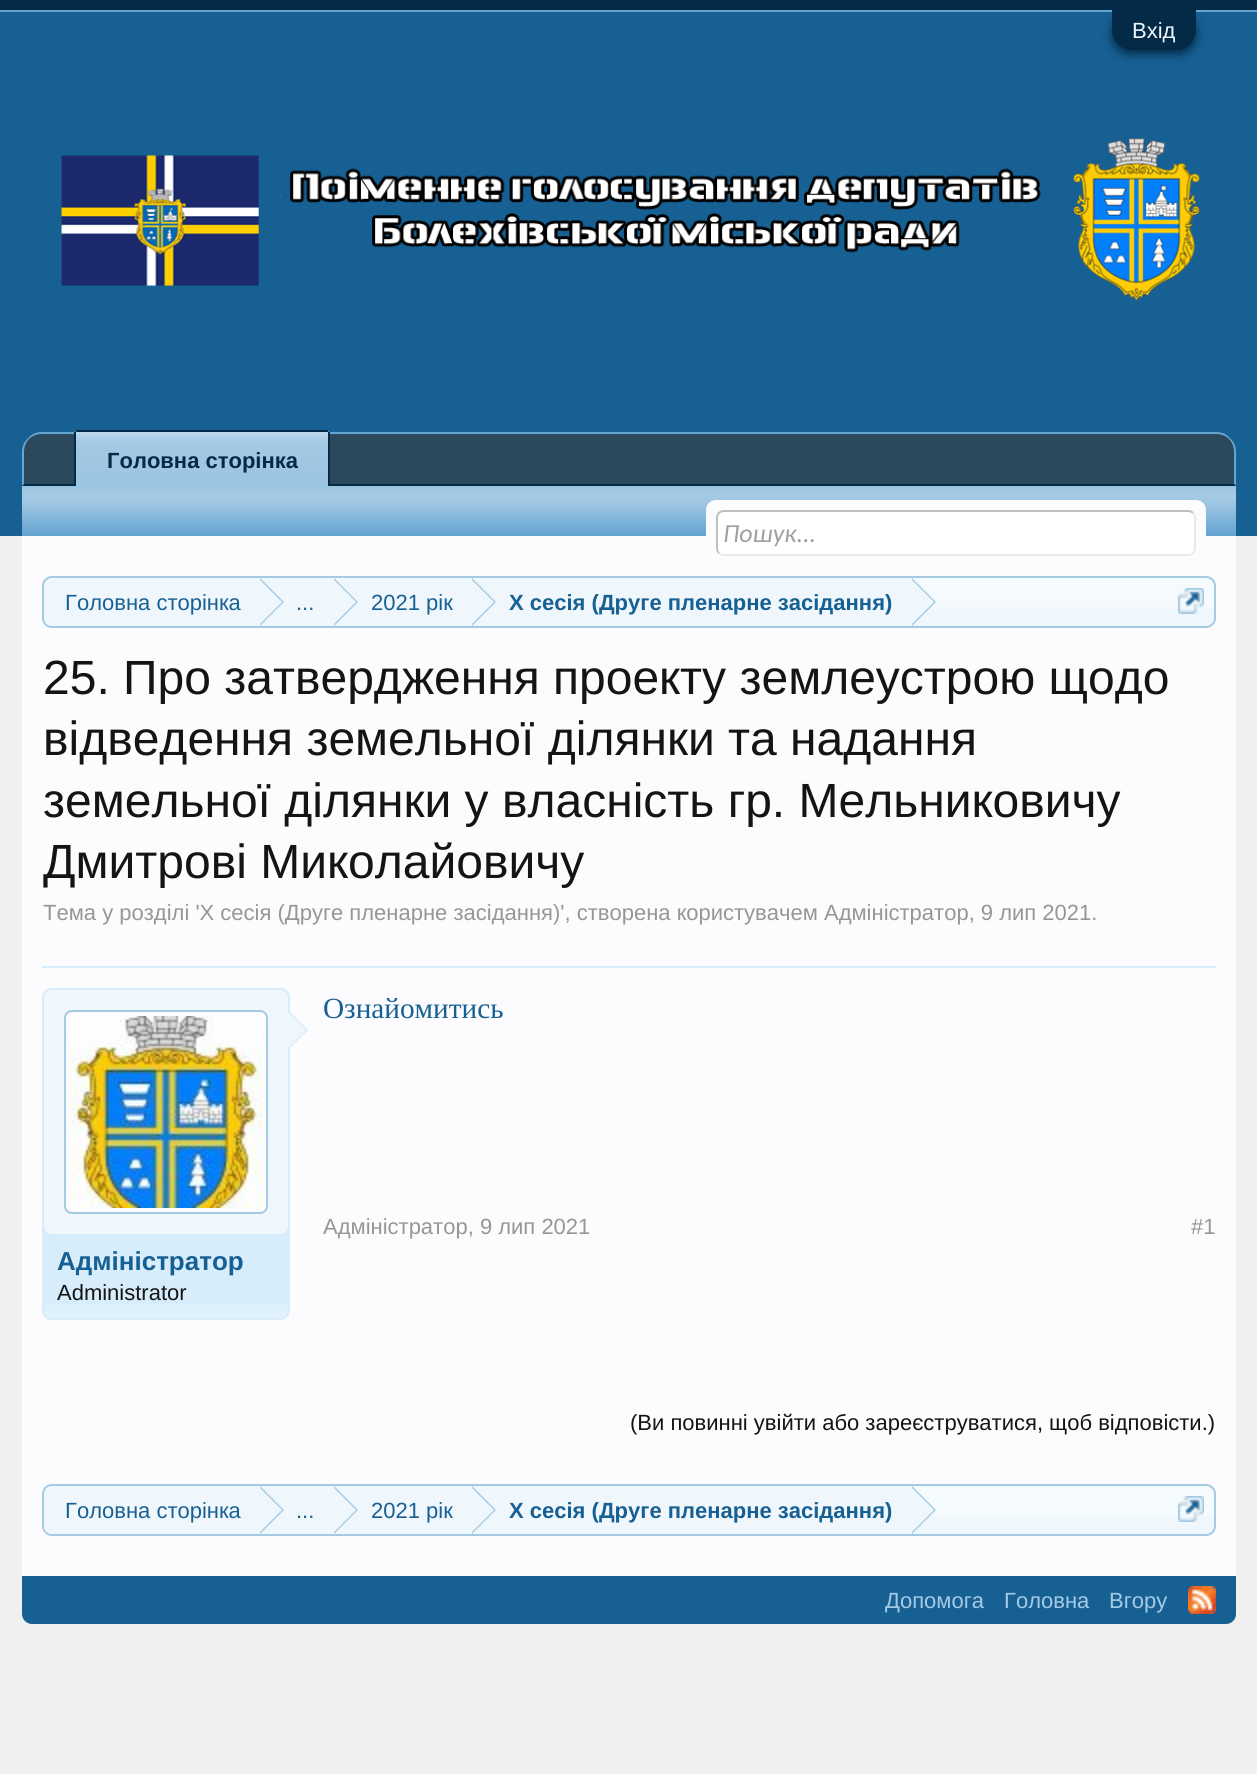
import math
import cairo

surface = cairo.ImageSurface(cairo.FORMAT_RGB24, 1257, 1774)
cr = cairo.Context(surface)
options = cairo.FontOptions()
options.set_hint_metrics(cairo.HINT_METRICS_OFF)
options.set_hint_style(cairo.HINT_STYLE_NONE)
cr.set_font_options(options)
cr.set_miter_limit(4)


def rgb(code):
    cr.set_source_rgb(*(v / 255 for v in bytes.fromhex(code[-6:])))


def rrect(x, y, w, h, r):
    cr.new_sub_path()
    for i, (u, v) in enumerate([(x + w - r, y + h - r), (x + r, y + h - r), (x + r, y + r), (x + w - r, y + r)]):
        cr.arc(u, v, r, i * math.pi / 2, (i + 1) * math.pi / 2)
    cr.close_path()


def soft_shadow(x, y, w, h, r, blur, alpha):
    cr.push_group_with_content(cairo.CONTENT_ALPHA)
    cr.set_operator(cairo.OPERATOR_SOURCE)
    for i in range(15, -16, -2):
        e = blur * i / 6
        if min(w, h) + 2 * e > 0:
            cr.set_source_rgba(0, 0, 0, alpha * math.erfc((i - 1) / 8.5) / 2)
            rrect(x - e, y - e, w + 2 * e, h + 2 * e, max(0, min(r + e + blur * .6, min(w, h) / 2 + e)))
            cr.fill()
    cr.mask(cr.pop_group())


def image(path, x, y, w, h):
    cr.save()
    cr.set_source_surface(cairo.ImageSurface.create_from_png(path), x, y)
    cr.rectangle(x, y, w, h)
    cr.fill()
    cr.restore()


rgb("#f0f0f0")
cr.paint()
for x, y, w, h, color in [
    (0, 0, 1257, 10, "#032a46"),
    (0, 10, 1257, 2, "#65a5d1"),
    (0, 12, 1257, 524, "#176093"),
]:
    rgb(color)
    cr.rectangle(x, y, w, h)
    cr.fill()
rgb("#032a46")
soft_shadow(1112, 14, 84, 40, 20, 5, 1)
rgb("#032a46")
cr.new_path()
cr.move_to(1112, 10)
cr.line_to(1196, 10)
cr.line_to(1196, 30)
cr.curve_to(1196, 41, 1187, 50, 1176, 50)
cr.line_to(1132, 50)
cr.curve_to(1121, 50, 1112, 41, 1112, 30)
cr.close_path()
cr.fill()
image("img/1.png", 61, 138, 1139, 163)
rgb("#2b485c")
cr.new_path()
cr.move_to(42, 432)
cr.line_to(1216, 432)
cr.curve_to(1227, 432, 1236, 441, 1236, 452)
cr.line_to(1236, 486)
cr.line_to(22, 486)
cr.line_to(22, 452)
cr.curve_to(22, 441, 31, 432, 42, 432)
cr.close_path()
cr.fill()
rgb("#65a5d1")
cr.new_path()
cr.move_to(42, 432)
cr.curve_to(36, 432, 32, 434, 28, 438)
cr.line_to(29, 439)
cr.curve_to(32, 436, 37, 434, 42, 434)
cr.line_to(1216, 434)
cr.curve_to(1221, 434, 1226, 436, 1229, 439)
cr.line_to(1230, 438)
cr.curve_to(1226, 434, 1222, 432, 1216, 432)
cr.close_path()
cr.fill()
cr.new_path()
cr.move_to(1236, 486)
cr.line_to(1236, 452)
cr.curve_to(1236, 446, 1234, 442, 1230, 438)
cr.line_to(1229, 439)
cr.curve_to(1232, 442, 1234, 447, 1234, 452)
cr.line_to(1234, 484)
cr.close_path()
cr.fill()
rgb("#032a46")
cr.new_path()
cr.move_to(1236, 486)
cr.line_to(1234, 484)
cr.line_to(24, 484)
cr.line_to(22, 486)
cr.close_path()
cr.fill()
rgb("#65a5d1")
cr.new_path()
cr.move_to(22, 486)
cr.line_to(24, 484)
cr.line_to(24, 452)
cr.curve_to(24, 447, 26, 442, 29, 439)
cr.line_to(28, 438)
cr.curve_to(24, 442, 22, 446, 22, 452)
cr.close_path()
cr.fill()
cr.new_path()
cr.move_to(78, 430)
cr.line_to(326, 430)
cr.curve_to(328, 430, 330, 432, 330, 434)
cr.line_to(330, 486)
cr.line_to(74, 486)
cr.line_to(74, 434)
cr.curve_to(74, 432, 76, 430, 78, 430)
cr.close_path()
cr.fill()
image("img/2.png", 76, 432, 252, 54)
for x, y, w, h, color in [
    (76, 430, 252, 2, "#032a46"),
    (328, 432, 2, 54, "#032a46"),
    (74, 432, 2, 54, "#032a46"),
    (22, 486, 1214, 50, "#65a5d1"),
]:
    rgb(color)
    cr.rectangle(x, y, w, h)
    cr.fill()
image("img/3.png", 22, 486, 1214, 47)
rgb("#fcfcff")
cr.rectangle(22, 536, 1214, 1040)
cr.fill()
rrect(706, 500, 500, 56, 10)
cr.fill()
rgb("#ffffff")
rrect(716, 510, 480, 46, 8)
cr.fill()
cr.new_path()
cr.move_to(1193, 513)
cr.curve_to(1194.5, 514.5, 1195, 516, 1195, 518)
cr.line_to(1195, 548)
cr.curve_to(1195, 550, 1194.5, 551.5, 1193, 553)
cr.curve_to(1191.5, 554.5, 1190, 555, 1188, 555)
cr.line_to(724, 555)
cr.curve_to(722, 555, 720.5, 554.5, 719, 553)
rgb("#e9e9e9")
cr.stroke()
cr.new_path()
cr.move_to(719, 553)
cr.curve_to(717.5, 551.5, 717, 550, 717, 548)
cr.line_to(717, 518)
cr.curve_to(717, 516, 717.5, 514.5, 719, 513)
cr.curve_to(720.5, 511.5, 722, 511, 724, 511)
cr.line_to(1188, 511)
cr.curve_to(1190, 511, 1191.5, 511.5, 1193, 513)
rgb("#c0c0c0")
cr.stroke()
rgb("#f0f7fc")
rrect(42, 576, 1174, 52, 10)
cr.fill()
image("img/4.png", 42, 578, 1174, 31)
rrect(43, 577, 1172, 50, 9)
rgb("#a5cae4")
cr.stroke()
cr.save()
rrect(44, 578, 1170, 48, 8)
cr.clip()
rgb("#f0f7fc")
cr.new_path()
cr.move_to(54, 578)
cr.line_to(260, 578)
cr.line_to(260, 628)
cr.line_to(54, 628)
cr.curve_to(48.5, 628, 44, 623.5, 44, 618)
cr.line_to(44, 588)
cr.curve_to(44, 582.5, 48.5, 578, 54, 578)
cr.close_path()
cr.fill()
cr.restore()
rgb("#f0f7fc")
cr.rectangle(260, 578, 652, 31)
cr.fill()
rgb("#a5cae4")
cr.new_path()
cr.move_to(260, 626)
cr.line_to(260, 578)
cr.line_to(284, 602)
cr.close_path()
cr.fill()
rgb("#f0f7fc")
cr.new_path()
cr.move_to(258, 626)
cr.line_to(258, 578)
cr.line_to(282, 602)
cr.close_path()
cr.fill()
rgb("#a5cae4")
cr.new_path()
cr.move_to(334, 626)
cr.line_to(334, 578)
cr.line_to(358, 602)
cr.close_path()
cr.fill()
rgb("#f0f7fc")
cr.new_path()
cr.move_to(332, 626)
cr.line_to(332, 578)
cr.line_to(356, 602)
cr.close_path()
cr.fill()
rgb("#a5cae4")
cr.new_path()
cr.move_to(472, 626)
cr.line_to(472, 578)
cr.line_to(496, 602)
cr.close_path()
cr.fill()
rgb("#f0f7fc")
cr.new_path()
cr.move_to(470, 626)
cr.line_to(470, 578)
cr.line_to(494, 602)
cr.close_path()
cr.fill()
rgb("#a5cae4")
cr.new_path()
cr.move_to(912, 626)
cr.line_to(912, 578)
cr.line_to(936, 602)
cr.close_path()
cr.fill()
rgb("#f0f7fc")
cr.new_path()
cr.move_to(910, 626)
cr.line_to(910, 578)
cr.line_to(934, 602)
cr.close_path()
cr.fill()
image("img/5.png", 1178, 588, 26, 26)
rgb("#d7edfc")
cr.rectangle(42, 966, 1174, 2)
cr.fill()
rrect(42, 988, 248, 332, 10)
cr.fill()
image("img/6.png", 42, 1304, 248, 14)
rrect(43, 989, 246, 330, 9)
cr.stroke()
rgb("#f0f7fc")
rrect(44, 990, 244, 244, 8)
cr.fill()
rgb("#fcfcff")
rrect(65, 1011, 202, 202, 7)
cr.fill_preserve()
rgb("#a5cae4")
cr.stroke()
image("img/7.png", 70, 1016, 192, 192)
rgb("#d7edfc")
cr.new_path()
cr.move_to(288, 1050)
cr.line_to(288, 1010)
cr.line_to(308, 1030)
cr.close_path()
cr.fill()
rgb("#f0f7fc")
cr.new_path()
cr.move_to(286, 1050)
cr.line_to(286, 1010)
cr.line_to(306, 1030)
cr.close_path()
cr.fill()
rrect(42, 1484, 1174, 52, 10)
cr.fill()
image("img/4.png", 42, 1486, 1174, 31)
rrect(43, 1485, 1172, 50, 9)
rgb("#a5cae4")
cr.stroke()
cr.save()
rrect(44, 1486, 1170, 48, 8)
cr.clip()
rgb("#f0f7fc")
cr.new_path()
cr.move_to(54, 1486)
cr.line_to(260, 1486)
cr.line_to(260, 1536)
cr.line_to(54, 1536)
cr.curve_to(48.5, 1536, 44, 1531.5, 44, 1526)
cr.line_to(44, 1496)
cr.curve_to(44, 1490.5, 48.5, 1486, 54, 1486)
cr.close_path()
cr.fill()
cr.restore()
rgb("#f0f7fc")
cr.rectangle(260, 1486, 652, 31)
cr.fill()
rgb("#a5cae4")
cr.new_path()
cr.move_to(260, 1534)
cr.line_to(260, 1486)
cr.line_to(284, 1510)
cr.close_path()
cr.fill()
rgb("#f0f7fc")
cr.new_path()
cr.move_to(258, 1534)
cr.line_to(258, 1486)
cr.line_to(282, 1510)
cr.close_path()
cr.fill()
rgb("#a5cae4")
cr.new_path()
cr.move_to(334, 1534)
cr.line_to(334, 1486)
cr.line_to(358, 1510)
cr.close_path()
cr.fill()
rgb("#f0f7fc")
cr.new_path()
cr.move_to(332, 1534)
cr.line_to(332, 1486)
cr.line_to(356, 1510)
cr.close_path()
cr.fill()
rgb("#a5cae4")
cr.new_path()
cr.move_to(472, 1534)
cr.line_to(472, 1486)
cr.line_to(496, 1510)
cr.close_path()
cr.fill()
rgb("#f0f7fc")
cr.new_path()
cr.move_to(470, 1534)
cr.line_to(470, 1486)
cr.line_to(494, 1510)
cr.close_path()
cr.fill()
rgb("#a5cae4")
cr.new_path()
cr.move_to(912, 1534)
cr.line_to(912, 1486)
cr.line_to(936, 1510)
cr.close_path()
cr.fill()
rgb("#f0f7fc")
cr.new_path()
cr.move_to(910, 1534)
cr.line_to(910, 1486)
cr.line_to(934, 1510)
cr.close_path()
cr.fill()
image("img/5.png", 1178, 1496, 26, 26)
rgb("#176093")
cr.new_path()
cr.move_to(22, 1576)
cr.line_to(1236, 1576)
cr.line_to(1236, 1614)
cr.curve_to(1236, 1619.5, 1231.5, 1624, 1226, 1624)
cr.line_to(32, 1624)
cr.curve_to(26.5, 1624, 22, 1619.5, 22, 1614)
cr.close_path()
cr.fill()
image("img/8.png", 1188, 1586, 28, 28)
cr.select_font_face("Liberation Sans")
cr.set_font_size(22)
rgb("#f0f7fc")
cr.move_to(1132, 38)
cr.show_text("Вхід")
cr.select_font_face("Liberation Sans", cairo.FONT_SLANT_NORMAL, cairo.FONT_WEIGHT_BOLD)
rgb("#032a46")
cr.move_to(107, 468)
cr.show_text("Головна сторінка")
cr.select_font_face("Carlito", cairo.FONT_SLANT_ITALIC)
cr.set_font_size(26)
rgb("#a0a0a0")
cr.move_to(723, 542)
cr.show_text("Пошук...")
cr.select_font_face("Liberation Sans")
cr.set_font_size(22)
rgb("#176093")
for x, y, s in [
    (65, 610, "Головна сторінка"),
    (296, 610, "..."),
    (371, 610, "2021 рік"),
]:
    cr.move_to(x, y)
    cr.show_text(s)
cr.select_font_face("Liberation Sans", cairo.FONT_SLANT_NORMAL, cairo.FONT_WEIGHT_BOLD)
cr.move_to(509, 610)
cr.show_text("X сесія (Друге пленарне засідання)")
cr.select_font_face("Liberation Sans")
cr.set_font_size(48)
rgb("#141414")
for x, y, s in [
    (43, 694, "25. Про затвердження проекту землеустрою щодо"),
    (43, 755, "відведення земельної ділянки та надання"),
    (43, 817, "земельної ділянки у власність гр. Мельниковичу"),
    (43, 878, "Дмитрові Миколайовичу"),
]:
    cr.move_to(x, y)
    cr.show_text(s)
cr.set_font_size(22)
rgb("#969696")
cr.move_to(43, 920)
cr.show_text("Тема у розділі 'X сесія (Друге пленарне засідання)', створена користувачем Адміністратор, 9 лип 2021.")
cr.select_font_face("Liberation Serif")
cr.set_font_size(29.25)
rgb("#176093")
cr.move_to(323, 1018)
cr.show_text("Ознайомитись")
cr.select_font_face("Liberation Sans")
cr.set_font_size(22)
rgb("#969696")
cr.move_to(323, 1234)
cr.show_text("Адміністратор, 9 лип 2021")
cr.move_to(1191, 1234)
cr.show_text("#1")
cr.select_font_face("Liberation Sans", cairo.FONT_SLANT_NORMAL, cairo.FONT_WEIGHT_BOLD)
cr.set_font_size(26)
rgb("#176093")
cr.move_to(57, 1270)
cr.show_text("Адміністратор")
cr.select_font_face("Liberation Sans")
cr.set_font_size(22)
rgb("#141414")
cr.move_to(57, 1300)
cr.show_text("Administrator")
cr.move_to(630, 1430)
cr.show_text("(Ви повинні увійти або зареєструватися, щоб відповісти.)")
rgb("#176093")
for x, y, s in [
    (65, 1518, "Головна сторінка"),
    (296, 1518, "..."),
    (371, 1518, "2021 рік"),
]:
    cr.move_to(x, y)
    cr.show_text(s)
cr.select_font_face("Liberation Sans", cairo.FONT_SLANT_NORMAL, cairo.FONT_WEIGHT_BOLD)
cr.move_to(509, 1518)
cr.show_text("X сесія (Друге пленарне засідання)")
cr.select_font_face("Liberation Sans")
rgb("#a5cae4")
for x, y, s in [
    (885, 1608, "Допомога"),
    (1004, 1608, "Головна"),
    (1109, 1608, "Вгору"),
]:
    cr.move_to(x, y)
    cr.show_text(s)
surface.write_to_png("page.png")
